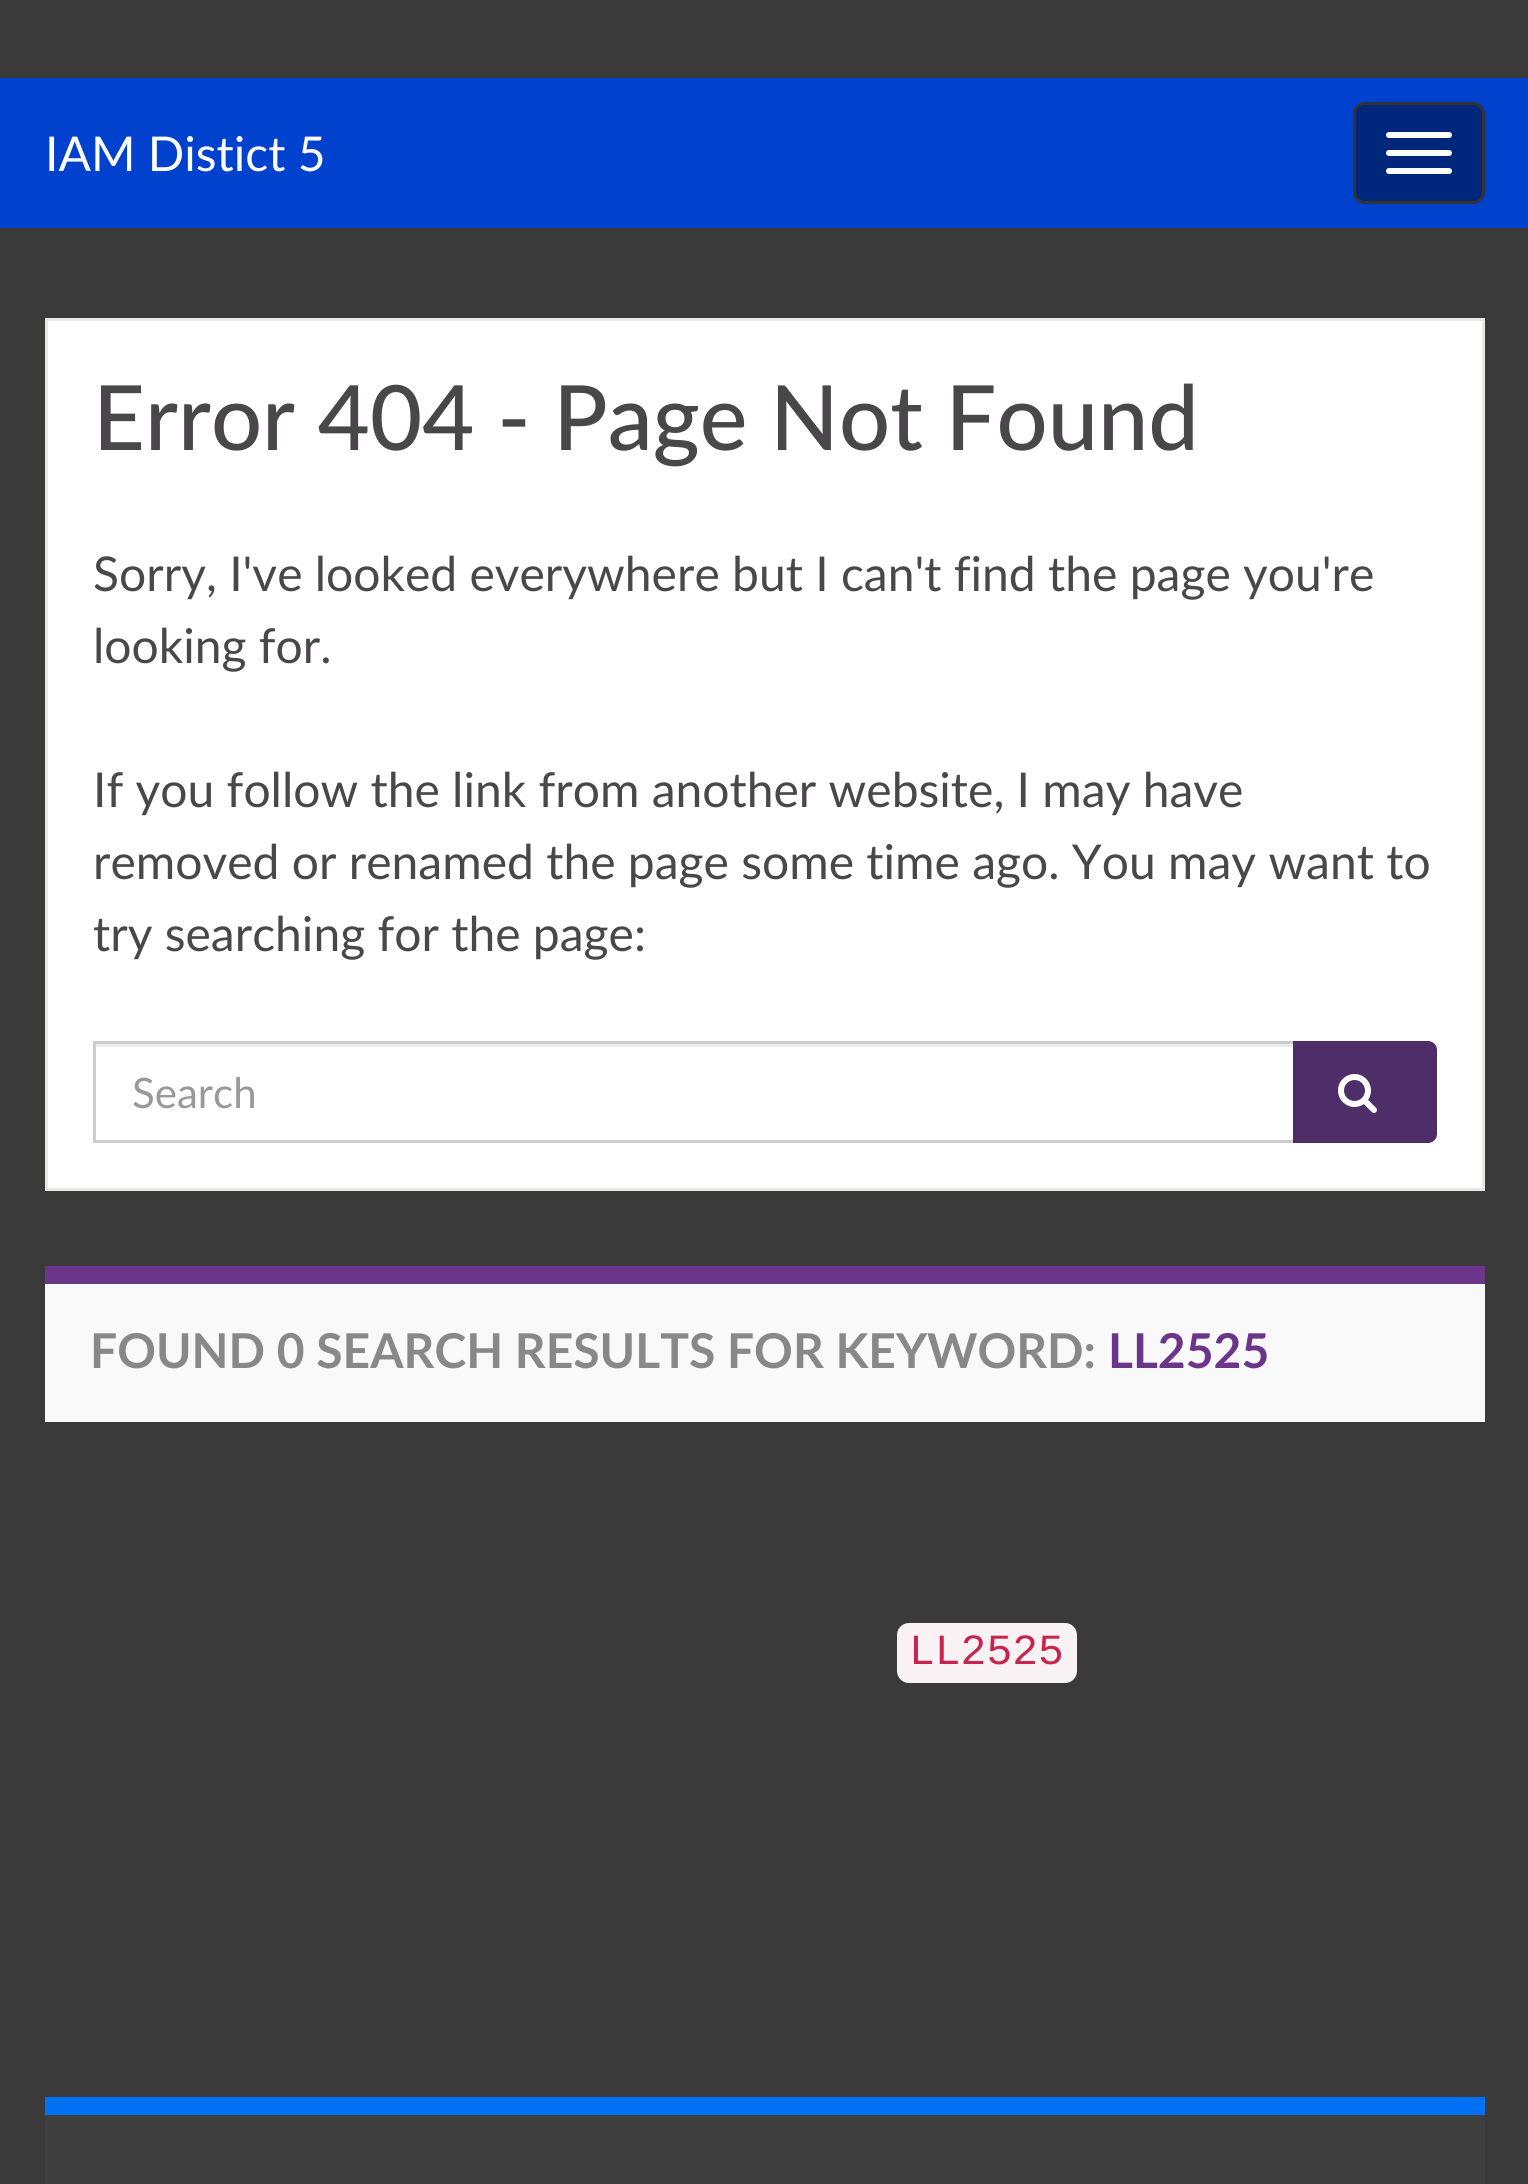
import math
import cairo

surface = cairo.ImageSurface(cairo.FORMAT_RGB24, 1528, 2184)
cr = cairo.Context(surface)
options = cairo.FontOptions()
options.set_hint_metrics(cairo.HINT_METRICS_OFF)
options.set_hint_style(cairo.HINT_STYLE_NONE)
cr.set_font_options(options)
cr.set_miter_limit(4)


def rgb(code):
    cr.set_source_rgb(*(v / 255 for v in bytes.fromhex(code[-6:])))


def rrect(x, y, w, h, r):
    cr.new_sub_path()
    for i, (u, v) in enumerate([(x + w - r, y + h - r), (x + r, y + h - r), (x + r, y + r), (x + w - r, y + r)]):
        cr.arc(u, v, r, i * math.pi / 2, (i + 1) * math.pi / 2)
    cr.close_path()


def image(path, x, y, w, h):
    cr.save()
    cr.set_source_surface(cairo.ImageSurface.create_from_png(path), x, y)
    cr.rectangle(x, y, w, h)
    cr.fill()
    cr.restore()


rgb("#3a3a3a")
cr.paint()
rgb("#0041ce")
cr.rectangle(0, 78, 1528, 150)
cr.fill()
rgb("#00277c")
rrect(1354.5, 103.5, 129, 99, 10.5)
cr.fill_preserve()
rgb("#333333")
cr.set_line_width(3)
cr.stroke()
rgb("#ffffff")
rrect(1386, 132, 66, 6, 3)
cr.fill()
rrect(1386, 150, 66, 6, 3)
cr.fill()
rrect(1386, 168, 66, 6, 3)
cr.fill()
cr.rectangle(46.5, 319.5, 1437, 870)
cr.fill_preserve()
rgb("#e9e8e3")
cr.stroke()
rgb("#ececec")
cr.rectangle(96, 1044, 1197, 3)
cr.fill()
cr.rectangle(94.5, 1042.5, 1200, 99)
rgb("#cccccc")
cr.stroke()
rgb("#4f2d69")
cr.new_path()
cr.move_to(1293, 1041)
cr.line_to(1428, 1041)
cr.curve_to(1433, 1041, 1437, 1045, 1437, 1050)
cr.line_to(1437, 1134)
cr.curve_to(1437, 1139, 1433, 1143, 1428, 1143)
cr.line_to(1293, 1143)
cr.close_path()
cr.fill()
image("img/1.png", 1338, 1074, 39, 39)
rgb("#f9f9f9")
cr.rectangle(45, 1284, 1440, 138)
cr.fill()
rgb("#6b3589")
cr.rectangle(45, 1266, 1440, 18)
cr.fill()
rgb("#f9f2f4")
rrect(897, 1623, 180, 60, 12)
cr.fill()
rgb("#3f3f3f")
cr.rectangle(45, 2115, 1440, 69)
cr.fill()
rgb("#0071f2")
cr.rectangle(45, 2097, 1440, 18)
cr.fill()
cr.select_font_face("Lato")
cr.set_font_size(48)
rgb("#ffffff")
cr.move_to(45, 171)
cr.show_text("IAM Distict 5")
cr.select_font_face("Lato Medium")
cr.set_font_size(90)
rgb("#4a474b")
cr.move_to(93, 450)
cr.show_text("Error 404 - Page Not Found")
cr.select_font_face("Lato")
cr.set_font_size(48)
for x, y, s in [
    (93, 591, "Sorry, I've looked everywhere but I can't find the page you're"),
    (93, 663, "looking for."),
    (93, 807, "If you follow the link from another website, I may have"),
    (93, 879, "removed or renamed the page some time ago. You may want to"),
    (93, 951, "try searching for the page:"),
]:
    cr.move_to(x, y)
    cr.show_text(s)
cr.set_font_size(42)
rgb("#999999")
cr.move_to(132, 1108)
cr.show_text("Search")
cr.select_font_face("Lato", cairo.FONT_SLANT_NORMAL, cairo.FONT_WEIGHT_BOLD)
cr.set_font_size(48)
rgb("#888888")
cr.move_to(90, 1368)
cr.show_text("FOUND 0 SEARCH RESULTS FOR KEYWORD:")
rgb("#6b3589")
cr.move_to(1108, 1368)
cr.show_text("LL2525")
cr.select_font_face("Liberation Mono")
cr.set_font_size(43)
rgb("#c7254e")
cr.move_to(909, 1664)
cr.show_text("LL2525")
surface.write_to_png("page.png")
